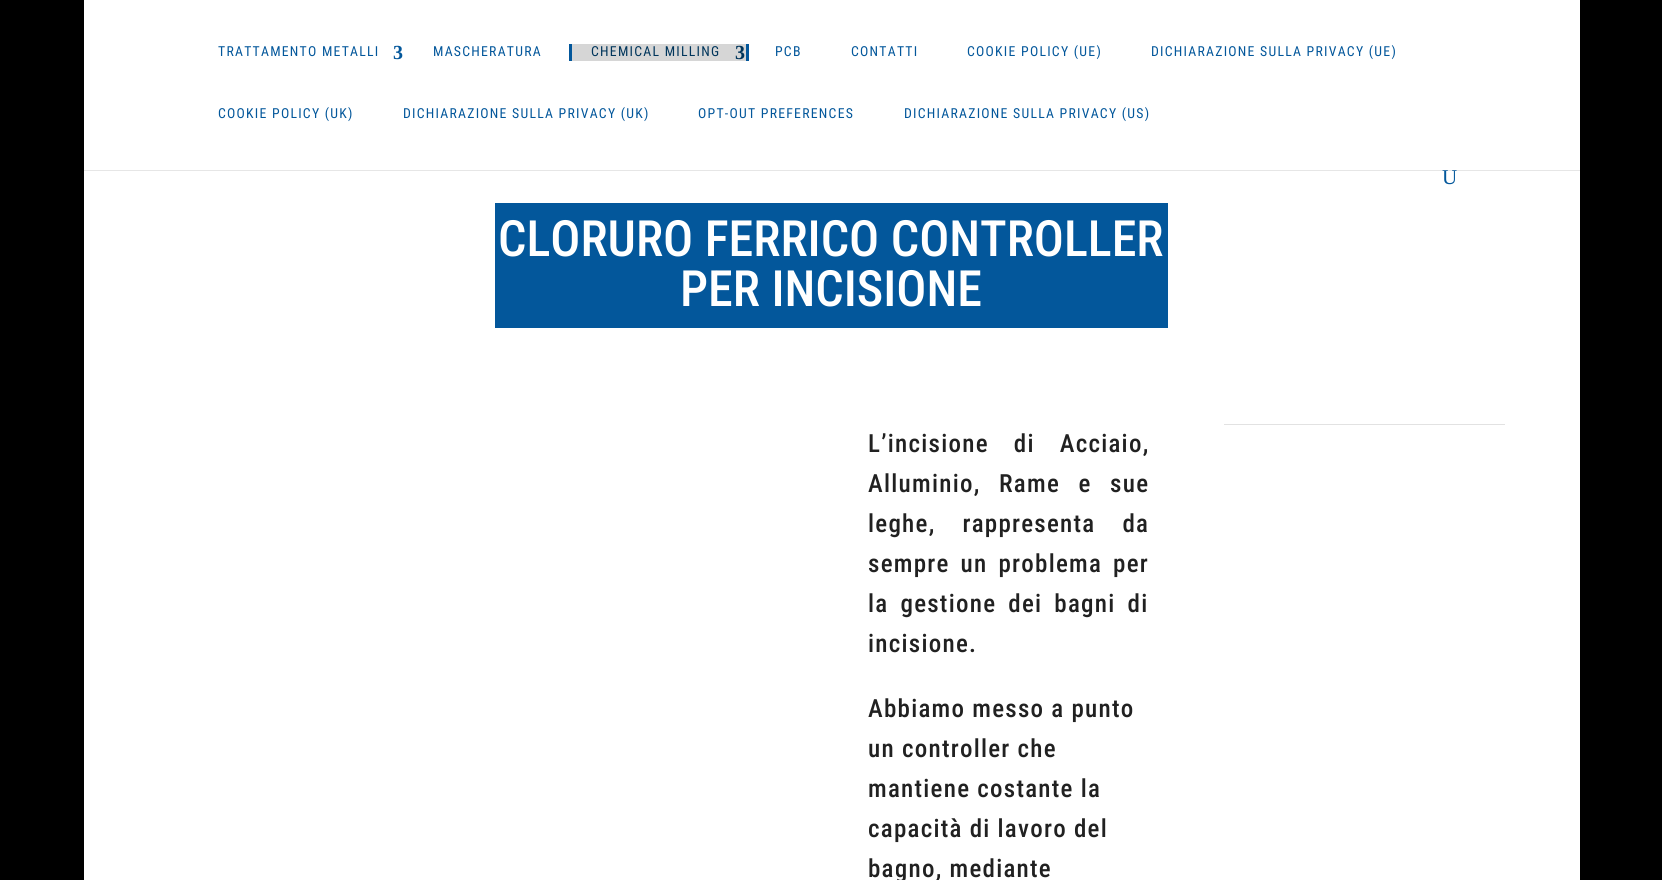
import math
import cairo

surface = cairo.ImageSurface(cairo.FORMAT_RGB24, 1662, 880)
cr = cairo.Context(surface)
options = cairo.FontOptions()
options.set_hint_metrics(cairo.HINT_METRICS_OFF)
options.set_hint_style(cairo.HINT_STYLE_NONE)
cr.set_font_options(options)
cr.set_miter_limit(4)


def rgb(code):
    cr.set_source_rgb(*(v / 255 for v in bytes.fromhex(code[-6:])))


def tracked(x, y, s, letter, word):
    cr.move_to(x, y)
    for ch in s:
        cr.show_text(ch)
        cr.rel_move_to(letter + word * (ch == ' '), 0)


rgb("#000000")
cr.paint()
for x, y, w, h, color in [
    (84, 170, 1496, 1, "#e6e6e6"),
    (84, 0, 1496, 170, "#ffffff"),
    (572, 44, 174, 17, "#d6d6d6"),
    (746, 44, 3, 17, "#03579b"),
    (569, 44, 3, 17, "#03579b"),
    (84, 171, 1496, 709, "#ffffff"),
    (495, 203, 673, 125, "#03579b"),
    (1224, 424, 281, 1, "#e2e2e2"),
]:
    rgb(color)
    cr.rectangle(x, y, w, h)
    cr.fill()
cr.select_font_face("Roboto Condensed")
cr.set_font_size(13.75)
rgb("#03579b")
tracked(218, 56, "TRATTAMENTO METALLI", 1.25, 0)
cr.select_font_face("Liberation Serif", cairo.FONT_SLANT_NORMAL, cairo.FONT_WEIGHT_BOLD)
cr.set_font_size(20)
tracked(393, 59, "3", 1.25, 0)
cr.select_font_face("Roboto Condensed")
cr.set_font_size(13.75)
tracked(433, 56, "MASCHERATURA", 1.25, 0)
rgb("#00355b")
tracked(591, 56, "CHEMICAL MILLING", 1.25, 0)
cr.select_font_face("Liberation Serif", cairo.FONT_SLANT_NORMAL, cairo.FONT_WEIGHT_BOLD)
cr.set_font_size(20)
tracked(735, 59, "3", 1.25, 0)
cr.select_font_face("Roboto Condensed")
cr.set_font_size(13.75)
rgb("#03579b")
for x, y, s in [
    (775, 56, "PCB"),
    (851, 56, "CONTATTI"),
    (967, 56, "COOKIE POLICY (UE)"),
    (1151, 56, "DICHIARAZIONE SULLA PRIVACY (UE)"),
    (218, 118, "COOKIE POLICY (UK)"),
    (403, 118, "DICHIARAZIONE SULLA PRIVACY (UK)"),
    (698, 118, "OPT-OUT PREFERENCES"),
    (904, 118, "DICHIARAZIONE SULLA PRIVACY (US)"),
]:
    tracked(x, y, s, 1.25, 0)
cr.select_font_face("Liberation Serif")
cr.set_font_size(21)
cr.move_to(1442, 184)
cr.show_text("U")
cr.select_font_face("Roboto Condensed Medium")
cr.set_font_size(50)
rgb("#ffffff")
cr.move_to(498, 256)
cr.show_text("CLORURO FERRICO CONTROLLER")
cr.move_to(680, 306)
cr.show_text("PER INCISIONE")
cr.set_font_size(25)
rgb("#212121")
tracked(868, 452, "L’incisione di Acciaio,", 1.25, 18)
tracked(868, 492, "Alluminio, Rame e sue", 1.25, 11.5)
tracked(868, 532, "leghe, rappresenta da", 1.25, 20)
tracked(868, 572, "sempre un problema per", 1.25, 4)
tracked(868, 612, "la gestione dei bagni di", 1.25, 5)
for x, y, s in [
    (868, 652, "incisione."),
    (868, 717, "Abbiamo messo a punto"),
    (868, 757, "un controller che"),
    (868, 797, "mantiene costante la"),
    (868, 837, "capacità di lavoro del"),
    (868, 877, "bagno, mediante"),
]:
    tracked(x, y, s, 1.25, 0)
surface.write_to_png("page.png")
